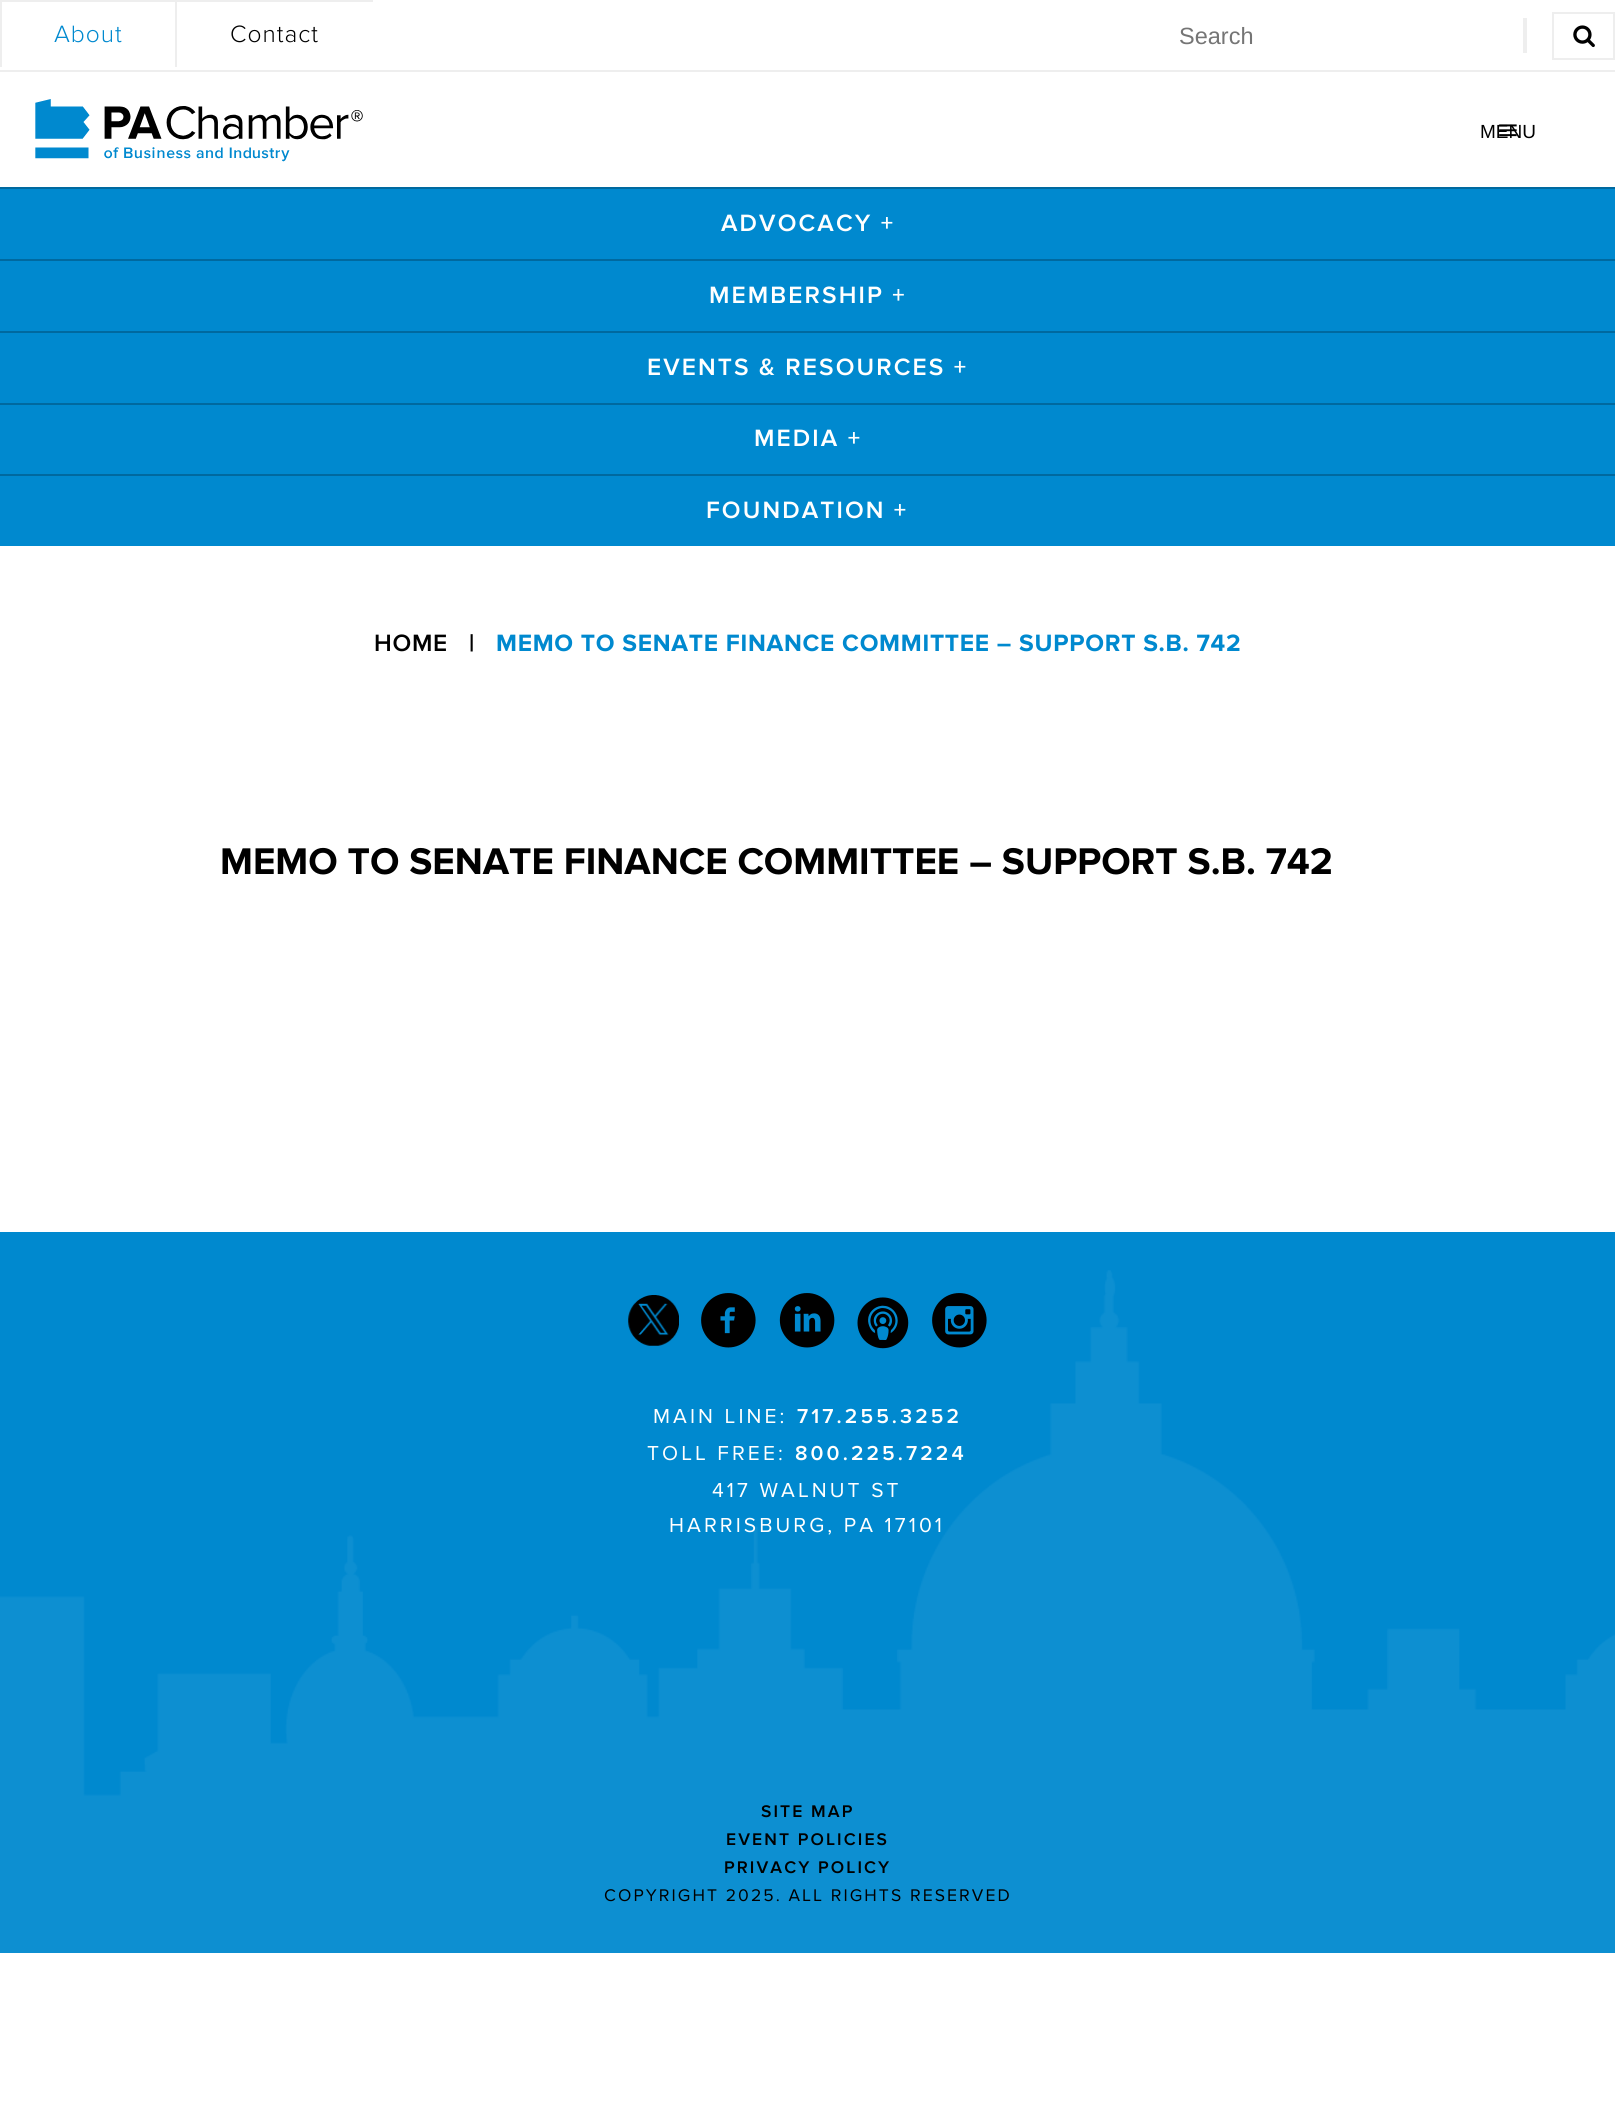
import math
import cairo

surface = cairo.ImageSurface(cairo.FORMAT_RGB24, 1615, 2126)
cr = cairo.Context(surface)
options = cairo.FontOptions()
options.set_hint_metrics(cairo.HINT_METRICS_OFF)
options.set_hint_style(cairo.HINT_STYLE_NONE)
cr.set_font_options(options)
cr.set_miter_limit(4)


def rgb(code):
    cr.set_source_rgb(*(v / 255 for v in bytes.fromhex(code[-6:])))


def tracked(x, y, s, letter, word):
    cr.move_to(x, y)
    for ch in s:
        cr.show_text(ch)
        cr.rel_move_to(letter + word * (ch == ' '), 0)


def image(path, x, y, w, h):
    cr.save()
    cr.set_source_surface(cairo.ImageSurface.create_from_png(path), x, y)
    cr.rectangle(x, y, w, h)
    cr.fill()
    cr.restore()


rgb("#ffffff")
cr.paint()
for x, y, w, h, color in [
    (0, 70, 1615, 2, "#eeeeee"),
    (0, 0, 373, 2, "#eeeeee"),
    (0, 0, 2, 67, "#eeeeee"),
    (175, 0, 2, 67, "#eeeeee"),
    (1523, 18, 4, 35, "#eeeeee"),
]:
    rgb(color)
    cr.rectangle(x, y, w, h)
    cr.fill()
cr.rectangle(1553, 13, 61, 46)
cr.stroke()
image("img/1.png", 1573, 25, 22, 23)
image("img/2.png", 35, 99, 328, 63)
image("img/3.png", 1499, 124, 18, 13)
for x, y, w, h, color in [
    (0, 189, 1615, 357, "#0089cf"),
    (0, 187, 1615, 2, "#00699f"),
    (0, 259, 1615, 2, "#00699f"),
    (0, 331, 1615, 2, "#00699f"),
    (0, 403, 1615, 2, "#00699f"),
    (0, 474, 1615, 2, "#00699f"),
    (0, 1232, 1615, 721, "#0089cf"),
]:
    rgb(color)
    cr.rectangle(x, y, w, h)
    cr.fill()
image("img/4.png", 0, 1270, 1615, 683)
image("img/5.png", 628, 1295, 51, 51)
image("img/6.png", 701, 1293, 55, 55)
image("img/7.png", 779, 1293, 56, 55)
image("img/8.png", 857, 1297, 52, 52)
image("img/9.png", 932, 1293, 55, 55)
cr.select_font_face("Proxima Nova Light")
cr.set_font_size(24.5)
tracked(54, 42, "About", 1, 0)
rgb("#000000")
tracked(230, 42, "Contact", 1, 0)
cr.select_font_face("Liberation Sans")
cr.set_font_size(23.5)
rgb("#757575")
cr.move_to(1179, 44)
cr.show_text("Search")
cr.set_font_size(19)
rgb("#000000")
cr.move_to(1480, 138)
cr.show_text("MENU")
cr.select_font_face("Proxima Nova SemiBold")
cr.set_font_size(24.5)
rgb("#ffffff")
for x, y, s in [
    (721, 231, "ADVOCACY +"),
    (709, 303, "MEMBERSHIP +"),
    (647, 375, "EVENTS & RESOURCES +"),
    (754, 446, "MEDIA +"),
    (706, 518, "FOUNDATION +"),
]:
    tracked(x, y, s, 2.1, 0)
rgb("#000000")
tracked(374, 651, "HOME", 0.73, 0)
cr.select_font_face("Proxima Nova", cairo.FONT_SLANT_NORMAL, cairo.FONT_WEIGHT_BOLD)
tracked(469, 651, "|", 0.73, 0)
rgb("#0089cf")
tracked(496, 651, "MEMO TO SENATE FINANCE COMMITTEE – SUPPORT S.B. 742", 0.73, 0)
cr.set_font_size(38.5)
rgb("#000000")
cr.move_to(220, 874)
cr.show_text("MEMO TO SENATE FINANCE COMMITTEE – SUPPORT S.B. 742")
cr.select_font_face("Proxima Nova")
cr.set_font_size(21)
rgb("#ffffff")
tracked(653, 1423, "MAIN LINE:", 3.1, 0)
cr.select_font_face("Proxima Nova SemiBold")
tracked(797, 1423, "717.255.3252", 3.1, 0)
cr.select_font_face("Proxima Nova")
tracked(647, 1460, "TOLL FREE:", 3.1, 0)
cr.select_font_face("Proxima Nova SemiBold")
tracked(795, 1460, "800.225.7224", 3.1, 0)
cr.select_font_face("Proxima Nova")
tracked(712, 1497, "417 WALNUT ST", 3.1, 0)
tracked(669, 1532, "HARRISBURG, PA 17101", 3.1, 0)
cr.select_font_face("Proxima Nova SemiBold")
cr.set_font_size(17.5)
rgb("#000000")
for x, y, s in [
    (761, 1817, "SITE MAP"),
    (726, 1845, "EVENT POLICIES"),
    (724, 1873, "PRIVACY POLICY"),
]:
    tracked(x, y, s, 2.1, 0)
cr.select_font_face("Proxima Nova")
tracked(604, 1901, "COPYRIGHT 2025. ALL RIGHTS RESERVED", 2.1, 0)
surface.write_to_png("page.png")
